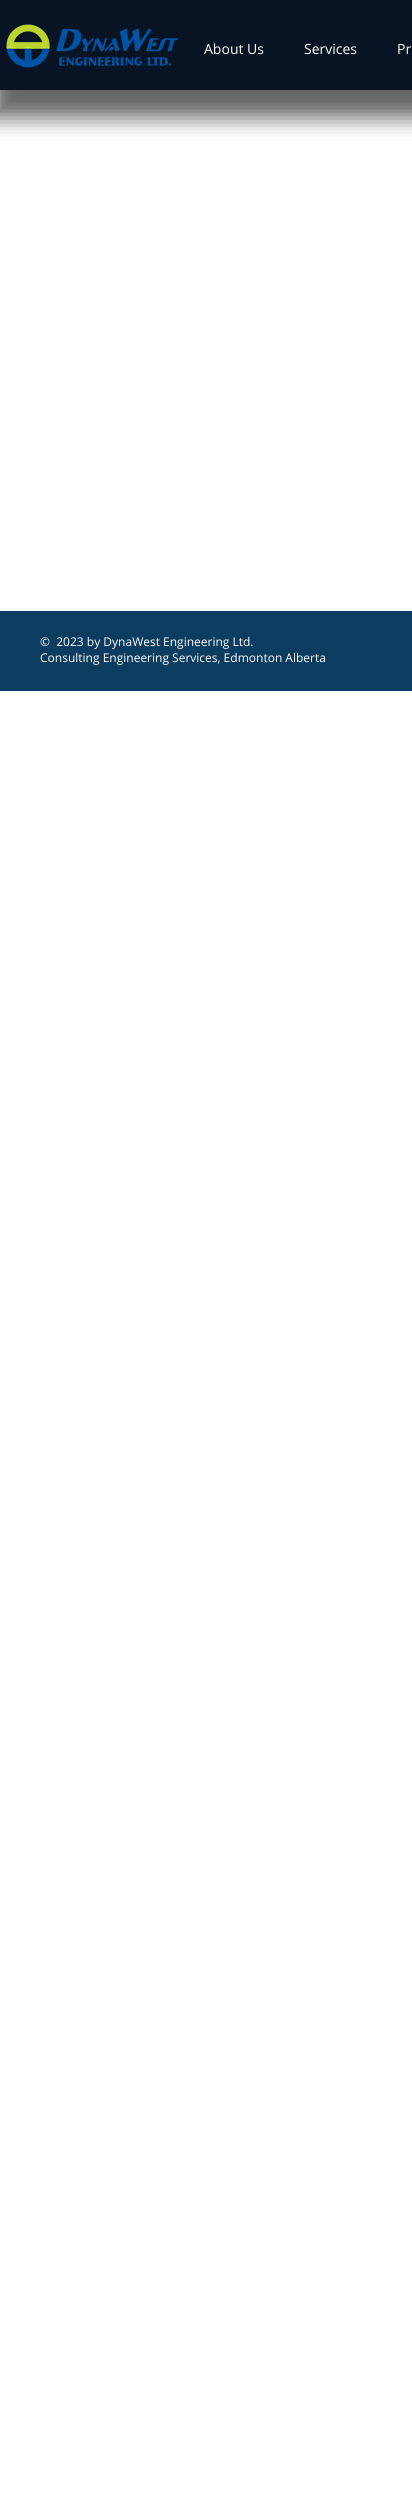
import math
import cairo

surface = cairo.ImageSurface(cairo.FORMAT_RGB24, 412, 2499)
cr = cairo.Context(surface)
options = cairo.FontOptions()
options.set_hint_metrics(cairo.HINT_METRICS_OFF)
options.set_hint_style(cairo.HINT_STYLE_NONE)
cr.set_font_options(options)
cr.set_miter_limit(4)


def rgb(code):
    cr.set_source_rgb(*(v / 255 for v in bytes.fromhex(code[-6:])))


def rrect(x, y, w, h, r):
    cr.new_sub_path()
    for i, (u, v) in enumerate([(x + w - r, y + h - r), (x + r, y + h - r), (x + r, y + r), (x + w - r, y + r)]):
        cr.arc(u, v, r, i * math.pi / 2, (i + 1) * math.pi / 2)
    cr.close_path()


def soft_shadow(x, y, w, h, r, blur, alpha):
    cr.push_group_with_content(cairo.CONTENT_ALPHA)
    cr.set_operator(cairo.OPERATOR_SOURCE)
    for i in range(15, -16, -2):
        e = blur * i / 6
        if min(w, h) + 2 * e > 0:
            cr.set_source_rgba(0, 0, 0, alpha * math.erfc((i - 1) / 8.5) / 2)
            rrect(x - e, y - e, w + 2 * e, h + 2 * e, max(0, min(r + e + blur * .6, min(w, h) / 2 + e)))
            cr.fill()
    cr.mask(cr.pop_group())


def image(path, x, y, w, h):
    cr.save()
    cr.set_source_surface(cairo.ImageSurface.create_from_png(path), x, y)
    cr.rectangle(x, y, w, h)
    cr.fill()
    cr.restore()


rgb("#ffffff")
cr.paint()
rgb("#000000")
soft_shadow(-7, 16, 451, 102, 0, 10.5, 0.6)
rgb("#081423")
cr.rectangle(0, 0, 412, 90)
cr.fill()
image("img/1.png", 6, 24, 173, 44)
rgb("#0c3c60")
cr.rectangle(0, 611, 412, 80)
cr.fill()
cr.select_font_face("Open Sans")
cr.set_font_size(14)
rgb("#ffffff")
for x, y, s in [
    (204, 54, "About Us"),
    (304, 54, "Services"),
    (397, 54, "Pr"),
]:
    cr.move_to(x, y)
    cr.show_text(s)
cr.set_font_size(12)
cr.move_to(40, 646)
cr.show_text("©  2023 by DynaWest Engineering Ltd.")
cr.move_to(40, 662)
cr.show_text("Consulting Engineering Services, Edmonton Alberta")
surface.write_to_png("page.png")
